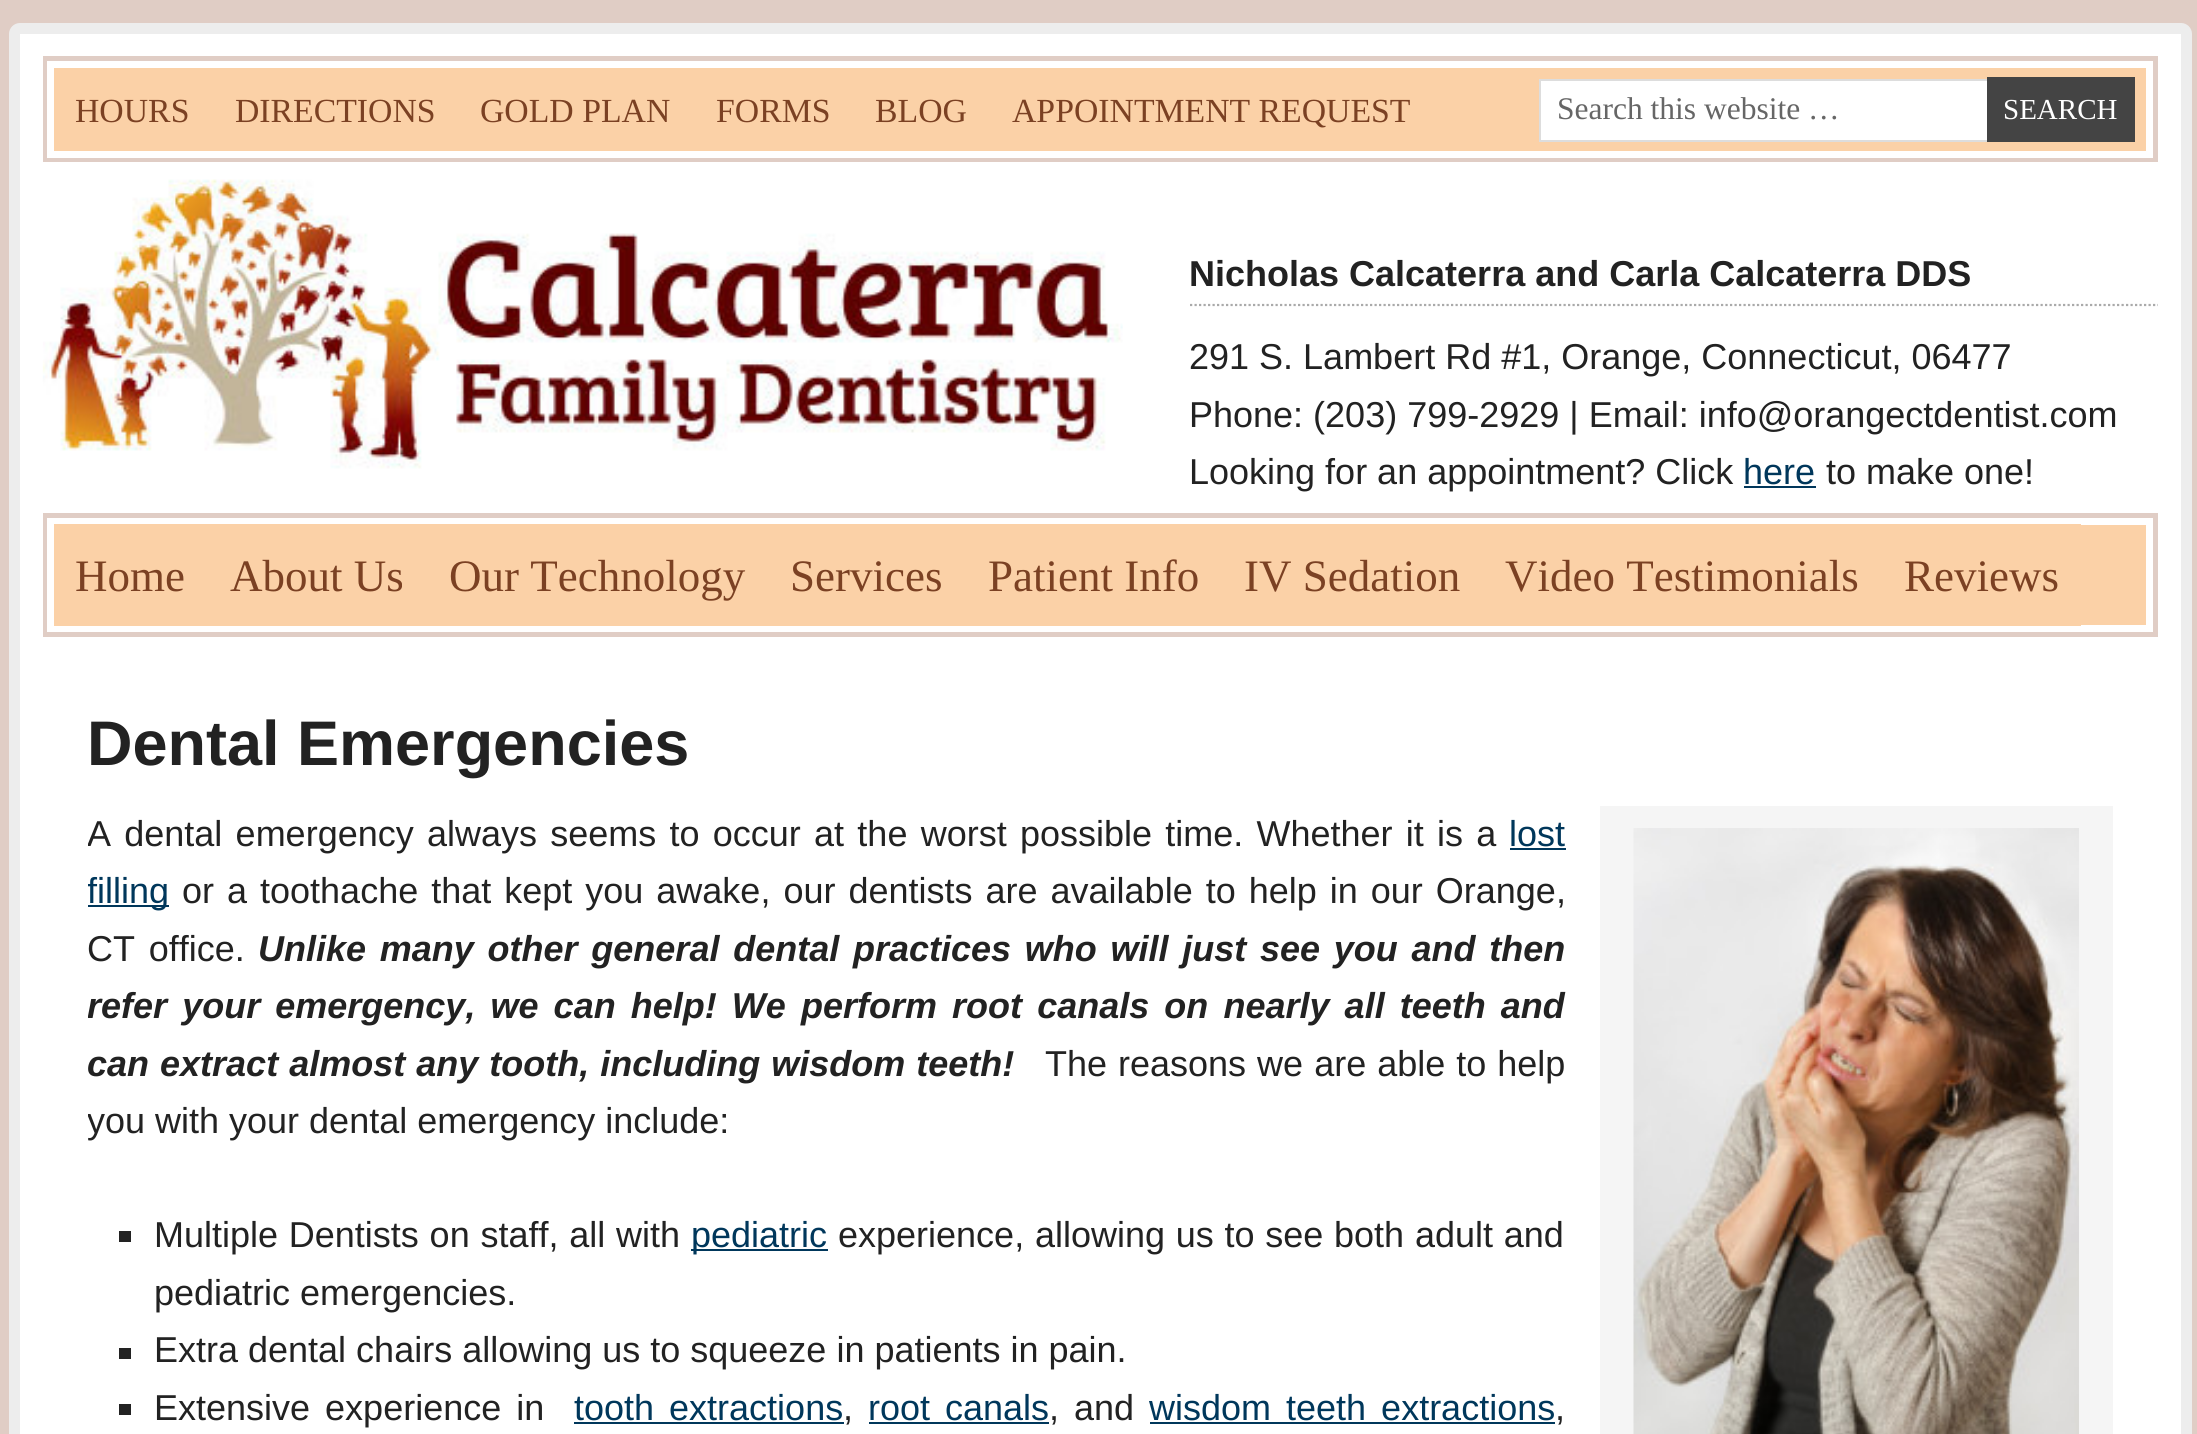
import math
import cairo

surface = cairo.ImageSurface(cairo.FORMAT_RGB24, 2197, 1434)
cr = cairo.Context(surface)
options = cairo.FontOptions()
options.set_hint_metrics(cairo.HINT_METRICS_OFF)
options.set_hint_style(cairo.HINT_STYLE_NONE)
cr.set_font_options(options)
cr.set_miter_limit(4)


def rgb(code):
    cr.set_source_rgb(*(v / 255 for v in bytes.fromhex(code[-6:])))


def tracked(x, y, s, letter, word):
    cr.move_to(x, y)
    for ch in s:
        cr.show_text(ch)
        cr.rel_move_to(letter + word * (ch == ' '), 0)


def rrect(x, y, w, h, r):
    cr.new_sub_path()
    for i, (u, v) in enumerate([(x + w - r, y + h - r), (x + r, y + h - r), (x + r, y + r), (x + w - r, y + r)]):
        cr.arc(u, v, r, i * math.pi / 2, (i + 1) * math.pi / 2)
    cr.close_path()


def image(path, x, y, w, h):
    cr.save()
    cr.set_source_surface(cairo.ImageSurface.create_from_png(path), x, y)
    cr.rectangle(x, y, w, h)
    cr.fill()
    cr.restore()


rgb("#e0cdc5")
cr.paint()
rgb("#ffffff")
rrect(14.5, 28.5, 2172, 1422, 5.5)
cr.fill_preserve()
rgb("#ededed")
cr.set_line_width(11)
cr.stroke()
rgb("#fbd1a7")
cr.rectangle(54, 68, 2092, 83)
cr.fill()
cr.rectangle(45.5, 58.5, 2110, 101)
rgb("#e0cdc5")
cr.set_line_width(5)
cr.stroke()
cr.rectangle(50.5, 64.5, 2099, 90)
rgb("#ffffff")
cr.set_line_width(7)
cr.stroke()
cr.rectangle(1541, 81, 446, 59)
cr.fill()
cr.rectangle(1540, 80, 462, 61)
rgb("#dddddd")
cr.set_line_width(2)
cr.stroke()
rgb("#444444")
cr.rectangle(1987, 77, 148, 65)
cr.fill()
image("img/1.png", 42, 179, 1081, 290)
cr.new_path()
cr.move_to(1190, 305)
cr.line_to(2158, 305)
rgb("#aaaaaa")
cr.set_line_width(2.2)
cr.set_dash([2.25, 2.25])
cr.stroke()
rgb("#00375b")
cr.rectangle(1744, 486, 72, 2)
cr.fill()
rgb("#fbd1a7")
cr.rectangle(2081, 525, 65, 100)
cr.fill()
cr.rectangle(45.5, 515.5, 2110, 119)
rgb("#e0cdc5")
cr.set_line_width(5)
cr.set_dash([])
cr.stroke()
cr.rectangle(50.5, 521.5, 2099, 107)
rgb("#ffffff")
cr.set_line_width(7)
cr.stroke()
for x, y, w, h, color in [
    (54, 524, 2027, 102, "#fbd1a7"),
    (1510, 848, 56, 2, "#00375b"),
    (88, 905, 81, 2, "#00375b"),
    (1600, 806, 513, 628, "#f5f5f5"),
]:
    rgb(color)
    cr.rectangle(x, y, w, h)
    cr.fill()
image("img/2.png", 1633, 828, 446, 606)
for x, y, w, h, color in [
    (119, 1231, 12, 11, "#222222"),
    (691, 1249, 137, 2, "#00375b"),
    (119, 1348, 12, 11, "#222222"),
    (119, 1404, 12, 11, "#222222"),
    (574, 1422, 270, 2, "#00375b"),
    (869, 1422, 180, 2, "#00375b"),
    (1150, 1422, 405, 2, "#00375b"),
]:
    rgb(color)
    cr.rectangle(x, y, w, h)
    cr.fill()
cr.select_font_face("Liberation Serif")
cr.set_font_size(33.75)
rgb("#7b4123")
for x, y, s in [
    (75, 122, "HOURS"),
    (235, 122, "DIRECTIONS"),
    (480, 122, "GOLD PLAN"),
    (716, 122, "FORMS"),
    (875, 122, "BLOG"),
    (1012, 122, "APPOINTMENT REQUEST"),
]:
    cr.move_to(x, y)
    cr.show_text(s)
cr.set_font_size(31.5)
rgb("#666666")
cr.move_to(1557, 119)
cr.show_text("Search this website …")
cr.set_font_size(29)
rgb("#ffffff")
cr.move_to(2003, 119)
cr.show_text("SEARCH")
cr.select_font_face("Liberation Sans", cairo.FONT_SLANT_NORMAL, cairo.FONT_WEIGHT_BOLD)
cr.set_font_size(36)
rgb("#222222")
cr.move_to(1189, 286)
cr.show_text("Nicholas Calcaterra and Carla Calcaterra DDS")
cr.select_font_face("Liberation Sans")
for x, y, s in [
    (1189, 369, "291 S. Lambert Rd #1, Orange, Connecticut, 06477"),
    (1189, 427, "Phone: (203) 799-2929 | Email: info@orangectdentist.com"),
    (1189, 484, "Looking for an appointment? Click"),
]:
    cr.move_to(x, y)
    cr.show_text(s)
rgb("#00375b")
cr.move_to(1743, 484)
cr.show_text("here")
rgb("#222222")
cr.move_to(1826, 484)
cr.show_text("to make one!")
cr.select_font_face("Liberation Serif")
cr.set_font_size(45)
rgb("#7b4123")
for x, y, s in [
    (75, 591, "Home"),
    (230, 591, "About Us"),
    (449, 591, "Our Technology"),
    (790, 591, "Services"),
    (988, 591, "Patient Info"),
    (1244, 591, "IV Sedation"),
    (1505, 591, "Video Testimonials"),
    (1904, 591, "Reviews"),
]:
    cr.move_to(x, y)
    cr.show_text(s)
cr.select_font_face("Liberation Sans", cairo.FONT_SLANT_NORMAL, cairo.FONT_WEIGHT_BOLD)
cr.set_font_size(63)
rgb("#222222")
cr.move_to(87, 765)
cr.show_text("Dental Emergencies")
cr.save()
cr.rectangle(88, 806, 2025, 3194)
cr.clip()
cr.select_font_face("Liberation Sans")
cr.set_font_size(36)
tracked(87, 846, "A dental emergency always seems to occur at the worst possible time. Whether it is a", 0, 3.25)
cr.restore()
cr.select_font_face("Liberation Sans")
cr.set_font_size(36)
rgb("#00375b")
cr.move_to(1509, 846)
cr.show_text("lost")
cr.save()
cr.rectangle(88, 806, 2025, 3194)
cr.clip()
cr.move_to(87, 903)
cr.show_text("filling")
cr.restore()
rgb("#222222")
tracked(182, 903, "or a toothache that kept you awake, our dentists are available to help in our Orange,", 0, 3)
tracked(87, 961, "CT office.", 0, 3.75)
cr.select_font_face("Liberation Sans", cairo.FONT_SLANT_ITALIC, cairo.FONT_WEIGHT_BOLD)
tracked(258, 961, "Unlike many other general dental practices who will just see you and then", 0, 3.75)
cr.save()
cr.rectangle(88, 806, 2025, 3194)
cr.clip()
tracked(87, 1018, "refer your emergency, we can help! We perform root canals on nearly all teeth and", 0, 5.1)
tracked(87, 1076, "can extract almost any tooth, including wisdom teeth!", 0, 1)
cr.restore()
cr.select_font_face("Liberation Sans")
tracked(1045, 1076, "The reasons we are able to help", 0, 1)
cr.save()
cr.rectangle(88, 806, 2025, 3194)
cr.clip()
cr.move_to(87, 1133)
cr.show_text("you with your dental emergency include:")
cr.restore()
tracked(154, 1247, "Multiple Dentists on staff, all with", 0, 0.75)
rgb("#00375b")
cr.move_to(691, 1247)
cr.show_text("pediatric")
rgb("#222222")
tracked(838, 1247, "experience, allowing us to see both adult and", 0, 0.75)
cr.move_to(154, 1305)
cr.show_text("pediatric emergencies.")
cr.move_to(154, 1362)
cr.show_text("Extra dental chairs allowing us to squeeze in patients in pain.")
tracked(154, 1420, "Extensive experience in", 0, 5)
rgb("#00375b")
tracked(574, 1420, "tooth extractions", 0, 5)
tracked(868, 1420, "root canals", 0, 5)
rgb("#222222")
tracked(1049, 1420, ", and", 0, 5)
rgb("#00375b")
tracked(1149, 1420, "wisdom teeth extractions", 0, 5)
rgb("#222222")
cr.move_to(843, 1420)
cr.show_text(",")
cr.move_to(1555, 1420)
cr.show_text(",")
surface.write_to_png("page.png")
